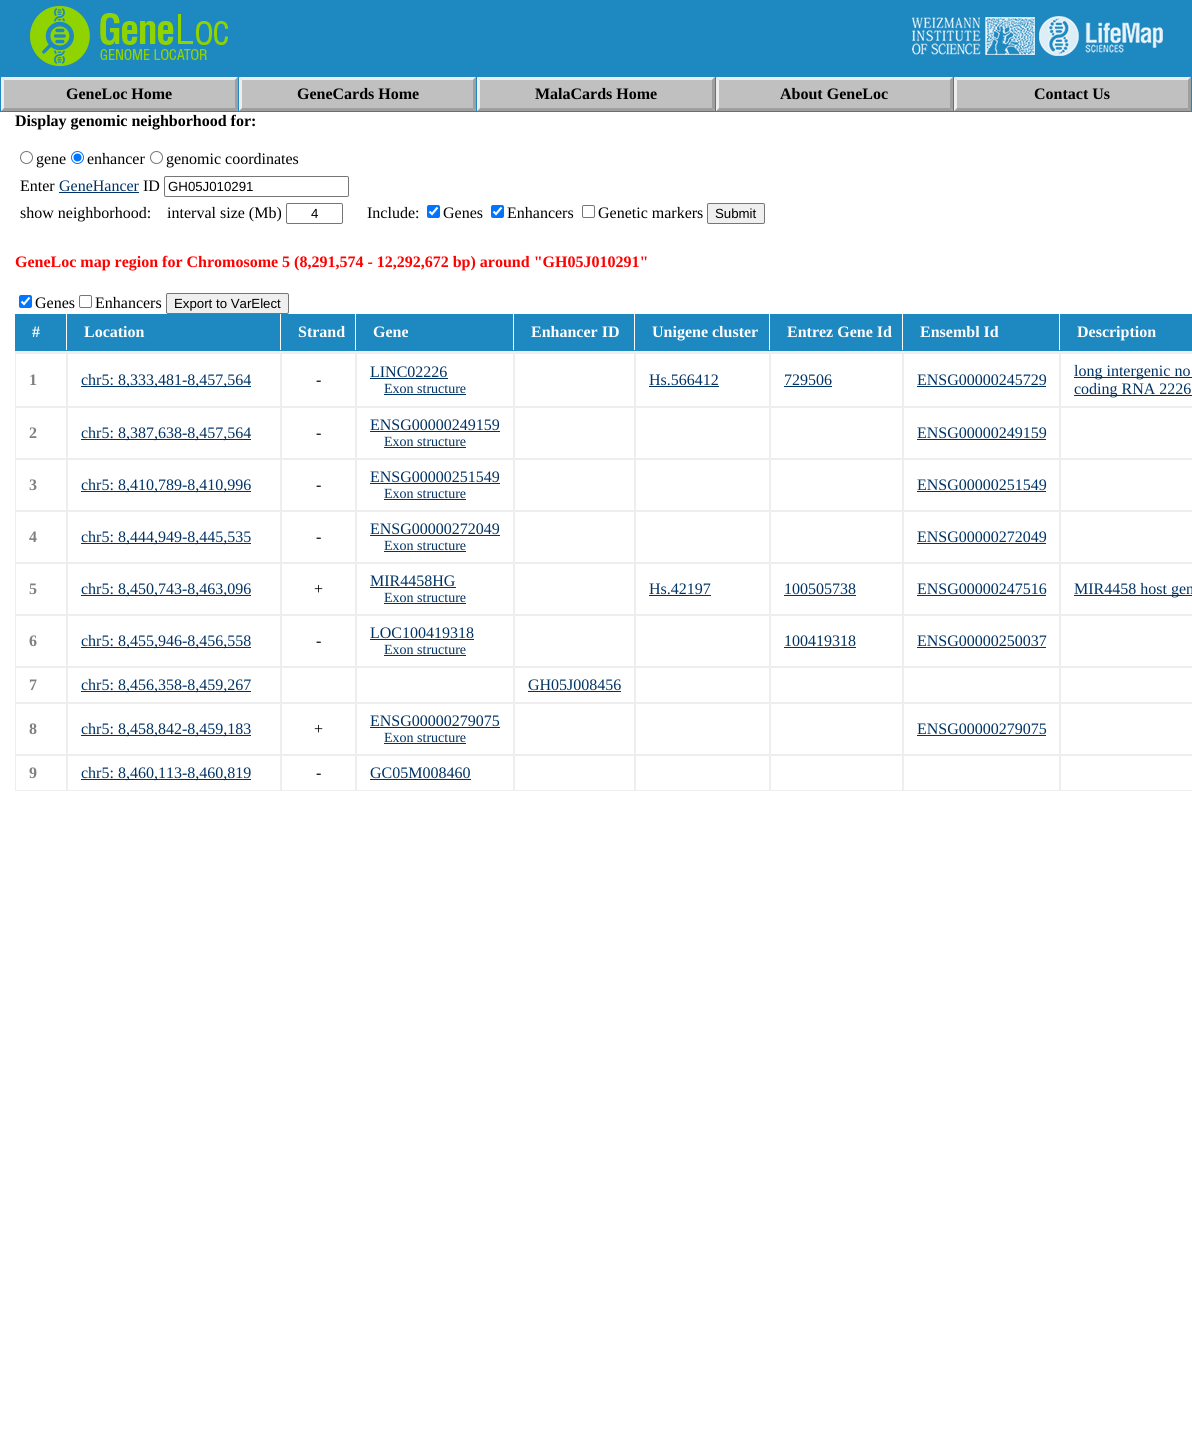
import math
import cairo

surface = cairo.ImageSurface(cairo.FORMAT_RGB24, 1192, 1452)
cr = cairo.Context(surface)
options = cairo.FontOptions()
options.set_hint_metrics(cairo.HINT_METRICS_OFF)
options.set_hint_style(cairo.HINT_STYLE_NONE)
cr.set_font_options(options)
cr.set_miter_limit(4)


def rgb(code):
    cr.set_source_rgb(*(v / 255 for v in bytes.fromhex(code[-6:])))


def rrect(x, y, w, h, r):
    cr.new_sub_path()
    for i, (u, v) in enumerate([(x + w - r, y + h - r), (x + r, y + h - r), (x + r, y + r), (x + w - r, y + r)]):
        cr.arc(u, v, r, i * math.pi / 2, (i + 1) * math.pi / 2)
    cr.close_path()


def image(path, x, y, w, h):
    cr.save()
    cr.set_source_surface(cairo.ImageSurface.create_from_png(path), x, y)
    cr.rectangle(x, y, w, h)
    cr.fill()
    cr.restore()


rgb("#ffffff")
cr.paint()
rgb("#1e88c1")
cr.rectangle(0, 0, 1192, 112)
cr.fill()
image("img/1.png", 30, 6, 198, 60)
image("img/2.png", 912, 17, 123, 38)
image("img/3.png", 1039, 16, 124, 40)
rgb("#c0c0c0")
cr.rectangle(1, 77, 237, 34)
cr.fill()
rgb("#eeeeee")
cr.new_path()
cr.move_to(1, 77)
cr.line_to(238, 77)
cr.line_to(235, 80)
cr.line_to(4, 80)
cr.close_path()
cr.fill()
rgb("#9f9f9f")
cr.new_path()
cr.move_to(238, 77)
cr.line_to(238, 111)
cr.line_to(235, 108)
cr.line_to(235, 80)
cr.close_path()
cr.fill()
cr.new_path()
cr.move_to(238, 111)
cr.line_to(1, 111)
cr.line_to(4, 108)
cr.line_to(235, 108)
cr.close_path()
cr.fill()
rgb("#eeeeee")
cr.new_path()
cr.move_to(1, 111)
cr.line_to(1, 77)
cr.line_to(4, 80)
cr.line_to(4, 108)
cr.close_path()
cr.fill()
rgb("#c0c0c0")
cr.rectangle(239, 77, 237, 34)
cr.fill()
rgb("#eeeeee")
cr.new_path()
cr.move_to(239, 77)
cr.line_to(476, 77)
cr.line_to(473, 80)
cr.line_to(242, 80)
cr.close_path()
cr.fill()
rgb("#9f9f9f")
cr.new_path()
cr.move_to(476, 77)
cr.line_to(476, 111)
cr.line_to(473, 108)
cr.line_to(473, 80)
cr.close_path()
cr.fill()
cr.new_path()
cr.move_to(476, 111)
cr.line_to(239, 111)
cr.line_to(242, 108)
cr.line_to(473, 108)
cr.close_path()
cr.fill()
rgb("#eeeeee")
cr.new_path()
cr.move_to(239, 111)
cr.line_to(239, 77)
cr.line_to(242, 80)
cr.line_to(242, 108)
cr.close_path()
cr.fill()
rgb("#c0c0c0")
cr.rectangle(477, 77, 238, 34)
cr.fill()
rgb("#eeeeee")
cr.new_path()
cr.move_to(477, 77)
cr.line_to(715, 77)
cr.line_to(712, 80)
cr.line_to(480, 80)
cr.close_path()
cr.fill()
rgb("#9f9f9f")
cr.new_path()
cr.move_to(715, 77)
cr.line_to(715, 111)
cr.line_to(712, 108)
cr.line_to(712, 80)
cr.close_path()
cr.fill()
cr.new_path()
cr.move_to(715, 111)
cr.line_to(477, 111)
cr.line_to(480, 108)
cr.line_to(712, 108)
cr.close_path()
cr.fill()
rgb("#eeeeee")
cr.new_path()
cr.move_to(477, 111)
cr.line_to(477, 77)
cr.line_to(480, 80)
cr.line_to(480, 108)
cr.close_path()
cr.fill()
rgb("#c0c0c0")
cr.rectangle(716, 77, 237, 34)
cr.fill()
rgb("#eeeeee")
cr.new_path()
cr.move_to(716, 77)
cr.line_to(953, 77)
cr.line_to(950, 80)
cr.line_to(719, 80)
cr.close_path()
cr.fill()
rgb("#9f9f9f")
cr.new_path()
cr.move_to(953, 77)
cr.line_to(953, 111)
cr.line_to(950, 108)
cr.line_to(950, 80)
cr.close_path()
cr.fill()
cr.new_path()
cr.move_to(953, 111)
cr.line_to(716, 111)
cr.line_to(719, 108)
cr.line_to(950, 108)
cr.close_path()
cr.fill()
rgb("#eeeeee")
cr.new_path()
cr.move_to(716, 111)
cr.line_to(716, 77)
cr.line_to(719, 80)
cr.line_to(719, 108)
cr.close_path()
cr.fill()
rgb("#c0c0c0")
cr.rectangle(954, 77, 237, 34)
cr.fill()
rgb("#eeeeee")
cr.new_path()
cr.move_to(954, 77)
cr.line_to(1191, 77)
cr.line_to(1188, 80)
cr.line_to(957, 80)
cr.close_path()
cr.fill()
rgb("#9f9f9f")
cr.new_path()
cr.move_to(1191, 77)
cr.line_to(1191, 111)
cr.line_to(1188, 108)
cr.line_to(1188, 80)
cr.close_path()
cr.fill()
cr.new_path()
cr.move_to(1191, 111)
cr.line_to(954, 111)
cr.line_to(957, 108)
cr.line_to(1188, 108)
cr.close_path()
cr.fill()
rgb("#eeeeee")
cr.new_path()
cr.move_to(954, 111)
cr.line_to(954, 77)
cr.line_to(957, 80)
cr.line_to(957, 108)
cr.close_path()
cr.fill()
cr.arc(26.5, 157.5, 6, 0, 2 * math.pi)
rgb("#767676")
cr.set_line_width(1)
cr.stroke()
cr.arc(77.5, 157.5, 6, 0, 2 * math.pi)
rgb("#0075ff")
cr.stroke()
cr.arc(77.5, 157.5, 4, 0, 2 * math.pi)
cr.fill()
cr.arc(156.5, 157.5, 6, 0, 2 * math.pi)
rgb("#767676")
cr.stroke()
rgb("#003366")
cr.rectangle(59, 192, 80, 1)
cr.fill()
rrect(164.5, 176.5, 184, 20, 1.5)
rgb("#767676")
cr.stroke()
rrect(286.5, 203.5, 56, 20, 1.5)
cr.stroke()
rgb("#0075ff")
rrect(427, 205, 13, 13, 2)
cr.fill()
cr.new_path()
cr.move_to(429.5, 211.5)
cr.line_to(432, 214)
cr.line_to(437.5, 207.5)
rgb("#ffffff")
cr.set_line_width(2.1)
cr.stroke()
rgb("#0075ff")
rrect(491, 205, 13, 13, 2)
cr.fill()
cr.new_path()
cr.move_to(493.5, 211.5)
cr.line_to(496, 214)
cr.line_to(501.5, 207.5)
rgb("#ffffff")
cr.stroke()
rrect(582.5, 205.5, 12, 12, 1.5)
rgb("#767676")
cr.set_line_width(1)
cr.stroke()
rgb("#efefef")
rrect(707.5, 203.5, 57, 20, 1.5)
cr.fill_preserve()
rgb("#767676")
cr.stroke()
rgb("#0075ff")
rrect(19, 295, 13, 13, 2)
cr.fill()
cr.new_path()
cr.move_to(21.5, 301.5)
cr.line_to(24, 304)
cr.line_to(29.5, 297.5)
rgb("#ffffff")
cr.set_line_width(2.1)
cr.stroke()
rrect(79.5, 295.5, 12, 12, 1.5)
rgb("#767676")
cr.set_line_width(1)
cr.stroke()
rgb("#efefef")
rrect(166.5, 293.5, 122, 20, 1.5)
cr.fill_preserve()
rgb("#767676")
cr.stroke()
for x, y, w, h, color in [
    (15, 314, 1177, 37, "#1e88c1"),
    (15, 351, 1177, 2, "#eeeeee"),
    (66, 314, 1, 36, "#ffffff"),
    (280, 314, 1, 36, "#ffffff"),
    (355, 314, 1, 36, "#ffffff"),
    (513, 314, 1, 36, "#ffffff"),
    (634, 314, 1, 36, "#ffffff"),
    (769, 314, 1, 36, "#ffffff"),
    (902, 314, 1, 36, "#ffffff"),
    (1059, 314, 1, 36, "#ffffff"),
]:
    rgb(color)
    cr.rectangle(x, y, w, h)
    cr.fill()
cr.rectangle(15.5, 353.5, 51, 53)
rgb("#eeeeee")
cr.stroke()
cr.rectangle(67.5, 353.5, 213, 53)
cr.stroke()
rgb("#003366")
cr.rectangle(81, 386, 170, 1)
cr.fill()
cr.rectangle(281.5, 353.5, 74, 53)
rgb("#eeeeee")
cr.stroke()
cr.rectangle(356.5, 353.5, 157, 53)
cr.stroke()
rgb("#003366")
cr.rectangle(370, 378, 78, 1)
cr.fill()
cr.rectangle(384, 394, 82, 1)
cr.fill()
cr.rectangle(514.5, 353.5, 120, 53)
rgb("#eeeeee")
cr.stroke()
cr.rectangle(635.5, 353.5, 134, 53)
cr.stroke()
rgb("#003366")
cr.rectangle(649, 386, 70, 1)
cr.fill()
cr.rectangle(770.5, 353.5, 132, 53)
rgb("#eeeeee")
cr.stroke()
rgb("#003366")
cr.rectangle(784, 386, 48, 1)
cr.fill()
cr.rectangle(903.5, 353.5, 156, 53)
rgb("#eeeeee")
cr.stroke()
rgb("#003366")
cr.rectangle(917, 386, 129, 1)
cr.fill()
cr.rectangle(1060.5, 353.5, 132, 53)
rgb("#eeeeee")
cr.stroke()
rgb("#003366")
cr.rectangle(1074, 377, 118, 1)
cr.fill()
cr.rectangle(1074, 395, 118, 1)
cr.fill()
cr.rectangle(15.5, 407.5, 51, 51)
rgb("#eeeeee")
cr.stroke()
cr.rectangle(67.5, 407.5, 213, 51)
cr.stroke()
rgb("#003366")
cr.rectangle(81, 439, 170, 1)
cr.fill()
cr.rectangle(281.5, 407.5, 74, 51)
rgb("#eeeeee")
cr.stroke()
cr.rectangle(356.5, 407.5, 157, 51)
cr.stroke()
rgb("#003366")
cr.rectangle(370, 431, 130, 1)
cr.fill()
cr.rectangle(384, 447, 82, 1)
cr.fill()
cr.rectangle(514.5, 407.5, 120, 51)
rgb("#eeeeee")
cr.stroke()
cr.rectangle(635.5, 407.5, 134, 51)
cr.stroke()
cr.rectangle(770.5, 407.5, 132, 51)
cr.stroke()
cr.rectangle(903.5, 407.5, 156, 51)
cr.stroke()
rgb("#003366")
cr.rectangle(917, 439, 129, 1)
cr.fill()
cr.rectangle(1060.5, 407.5, 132, 51)
rgb("#eeeeee")
cr.stroke()
cr.rectangle(15.5, 459.5, 51, 51)
cr.stroke()
cr.rectangle(67.5, 459.5, 213, 51)
cr.stroke()
rgb("#003366")
cr.rectangle(81, 491, 170, 1)
cr.fill()
cr.rectangle(281.5, 459.5, 74, 51)
rgb("#eeeeee")
cr.stroke()
cr.rectangle(356.5, 459.5, 157, 51)
cr.stroke()
rgb("#003366")
cr.rectangle(370, 483, 130, 1)
cr.fill()
cr.rectangle(384, 499, 82, 1)
cr.fill()
cr.rectangle(514.5, 459.5, 120, 51)
rgb("#eeeeee")
cr.stroke()
cr.rectangle(635.5, 459.5, 134, 51)
cr.stroke()
cr.rectangle(770.5, 459.5, 132, 51)
cr.stroke()
cr.rectangle(903.5, 459.5, 156, 51)
cr.stroke()
rgb("#003366")
cr.rectangle(917, 491, 129, 1)
cr.fill()
cr.rectangle(1060.5, 459.5, 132, 51)
rgb("#eeeeee")
cr.stroke()
cr.rectangle(15.5, 511.5, 51, 51)
cr.stroke()
cr.rectangle(67.5, 511.5, 213, 51)
cr.stroke()
rgb("#003366")
cr.rectangle(81, 543, 170, 1)
cr.fill()
cr.rectangle(281.5, 511.5, 74, 51)
rgb("#eeeeee")
cr.stroke()
cr.rectangle(356.5, 511.5, 157, 51)
cr.stroke()
rgb("#003366")
cr.rectangle(370, 535, 130, 1)
cr.fill()
cr.rectangle(384, 551, 82, 1)
cr.fill()
cr.rectangle(514.5, 511.5, 120, 51)
rgb("#eeeeee")
cr.stroke()
cr.rectangle(635.5, 511.5, 134, 51)
cr.stroke()
cr.rectangle(770.5, 511.5, 132, 51)
cr.stroke()
cr.rectangle(903.5, 511.5, 156, 51)
cr.stroke()
rgb("#003366")
cr.rectangle(917, 543, 129, 1)
cr.fill()
cr.rectangle(1060.5, 511.5, 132, 51)
rgb("#eeeeee")
cr.stroke()
cr.rectangle(15.5, 563.5, 51, 51)
cr.stroke()
cr.rectangle(67.5, 563.5, 213, 51)
cr.stroke()
rgb("#003366")
cr.rectangle(81, 595, 170, 1)
cr.fill()
cr.rectangle(281.5, 563.5, 74, 51)
rgb("#eeeeee")
cr.stroke()
cr.rectangle(356.5, 563.5, 157, 51)
cr.stroke()
rgb("#003366")
cr.rectangle(370, 587, 86, 1)
cr.fill()
cr.rectangle(384, 603, 82, 1)
cr.fill()
cr.rectangle(514.5, 563.5, 120, 51)
rgb("#eeeeee")
cr.stroke()
cr.rectangle(635.5, 563.5, 134, 51)
cr.stroke()
rgb("#003366")
cr.rectangle(649, 595, 62, 1)
cr.fill()
cr.rectangle(770.5, 563.5, 132, 51)
rgb("#eeeeee")
cr.stroke()
rgb("#003366")
cr.rectangle(784, 595, 72, 1)
cr.fill()
cr.rectangle(903.5, 563.5, 156, 51)
rgb("#eeeeee")
cr.stroke()
rgb("#003366")
cr.rectangle(917, 595, 129, 1)
cr.fill()
cr.rectangle(1060.5, 563.5, 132, 51)
rgb("#eeeeee")
cr.stroke()
rgb("#003366")
cr.rectangle(1074, 595, 118, 1)
cr.fill()
cr.rectangle(15.5, 615.5, 51, 51)
rgb("#eeeeee")
cr.stroke()
cr.rectangle(67.5, 615.5, 213, 51)
cr.stroke()
rgb("#003366")
cr.rectangle(81, 647, 170, 1)
cr.fill()
cr.rectangle(281.5, 615.5, 74, 51)
rgb("#eeeeee")
cr.stroke()
cr.rectangle(356.5, 615.5, 157, 51)
cr.stroke()
rgb("#003366")
cr.rectangle(370, 639, 104, 1)
cr.fill()
cr.rectangle(384, 655, 82, 1)
cr.fill()
cr.rectangle(514.5, 615.5, 120, 51)
rgb("#eeeeee")
cr.stroke()
cr.rectangle(635.5, 615.5, 134, 51)
cr.stroke()
cr.rectangle(770.5, 615.5, 132, 51)
cr.stroke()
rgb("#003366")
cr.rectangle(784, 647, 72, 1)
cr.fill()
cr.rectangle(903.5, 615.5, 156, 51)
rgb("#eeeeee")
cr.stroke()
rgb("#003366")
cr.rectangle(917, 647, 129, 1)
cr.fill()
cr.rectangle(1060.5, 615.5, 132, 51)
rgb("#eeeeee")
cr.stroke()
cr.rectangle(15.5, 667.5, 51, 35)
cr.stroke()
cr.rectangle(67.5, 667.5, 213, 35)
cr.stroke()
rgb("#003366")
cr.rectangle(81, 691, 170, 1)
cr.fill()
cr.rectangle(281.5, 667.5, 74, 35)
rgb("#eeeeee")
cr.stroke()
cr.rectangle(356.5, 667.5, 157, 35)
cr.stroke()
cr.rectangle(514.5, 667.5, 120, 35)
cr.stroke()
rgb("#003366")
cr.rectangle(528, 691, 93, 1)
cr.fill()
cr.rectangle(635.5, 667.5, 134, 35)
rgb("#eeeeee")
cr.stroke()
cr.rectangle(770.5, 667.5, 132, 35)
cr.stroke()
cr.rectangle(903.5, 667.5, 156, 35)
cr.stroke()
cr.rectangle(1060.5, 667.5, 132, 35)
cr.stroke()
cr.rectangle(15.5, 703.5, 51, 51)
cr.stroke()
cr.rectangle(67.5, 703.5, 213, 51)
cr.stroke()
rgb("#003366")
cr.rectangle(81, 735, 170, 1)
cr.fill()
cr.rectangle(281.5, 703.5, 74, 51)
rgb("#eeeeee")
cr.stroke()
cr.rectangle(356.5, 703.5, 157, 51)
cr.stroke()
rgb("#003366")
cr.rectangle(370, 727, 130, 1)
cr.fill()
cr.rectangle(384, 743, 82, 1)
cr.fill()
cr.rectangle(514.5, 703.5, 120, 51)
rgb("#eeeeee")
cr.stroke()
cr.rectangle(635.5, 703.5, 134, 51)
cr.stroke()
cr.rectangle(770.5, 703.5, 132, 51)
cr.stroke()
cr.rectangle(903.5, 703.5, 156, 51)
cr.stroke()
rgb("#003366")
cr.rectangle(917, 735, 129, 1)
cr.fill()
cr.rectangle(1060.5, 703.5, 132, 51)
rgb("#eeeeee")
cr.stroke()
cr.rectangle(15.5, 755.5, 51, 35)
cr.stroke()
cr.rectangle(67.5, 755.5, 213, 35)
cr.stroke()
rgb("#003366")
cr.rectangle(81, 779, 170, 1)
cr.fill()
cr.rectangle(281.5, 755.5, 74, 35)
rgb("#eeeeee")
cr.stroke()
cr.rectangle(356.5, 755.5, 157, 35)
cr.stroke()
rgb("#003366")
cr.rectangle(370, 779, 101, 1)
cr.fill()
cr.rectangle(514.5, 755.5, 120, 35)
rgb("#eeeeee")
cr.stroke()
cr.rectangle(635.5, 755.5, 134, 35)
cr.stroke()
cr.rectangle(770.5, 755.5, 132, 35)
cr.stroke()
cr.rectangle(903.5, 755.5, 156, 35)
cr.stroke()
cr.rectangle(1060.5, 755.5, 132, 35)
cr.stroke()
cr.select_font_face("Liberation Serif", cairo.FONT_SLANT_NORMAL, cairo.FONT_WEIGHT_BOLD)
cr.set_font_size(16)
rgb("#000000")
for x, y, s in [
    (66, 99, "GeneLoc Home"),
    (297, 99, "GeneCards Home"),
    (535, 99, "MalaCards Home"),
    (780, 99, "About GeneLoc"),
    (1034, 99, "Contact Us"),
    (15, 126, "Display genomic neighborhood for:"),
]:
    cr.move_to(x, y)
    cr.show_text(s)
cr.select_font_face("Liberation Serif")
for x, y, s in [
    (36, 164, "gene"),
    (87, 164, "enhancer"),
    (166, 164, "genomic coordinates"),
    (20, 191, "Enter"),
]:
    cr.move_to(x, y)
    cr.show_text(s)
rgb("#003366")
cr.move_to(59, 191)
cr.show_text("GeneHancer")
rgb("#000000")
cr.move_to(143, 191)
cr.show_text("ID")
cr.select_font_face("Liberation Sans")
cr.set_font_size(13.25)
cr.move_to(168, 191)
cr.show_text("GH05J010291")
cr.select_font_face("Liberation Serif")
cr.set_font_size(16)
cr.move_to(20, 218)
cr.show_text("show neighborhood:    interval size (Mb)")
cr.select_font_face("Liberation Sans")
cr.set_font_size(13.25)
cr.move_to(311, 218)
cr.show_text("4")
cr.select_font_face("Liberation Serif")
cr.set_font_size(16)
for x, y, s in [
    (367, 218, "Include:"),
    (443, 218, "Genes"),
    (507, 218, "Enhancers"),
    (598, 218, "Genetic markers"),
]:
    cr.move_to(x, y)
    cr.show_text(s)
cr.select_font_face("Liberation Sans")
cr.set_font_size(13.25)
cr.move_to(715, 218)
cr.show_text("Submit")
cr.select_font_face("Liberation Serif", cairo.FONT_SLANT_NORMAL, cairo.FONT_WEIGHT_BOLD)
cr.set_font_size(16)
rgb("#ff0000")
cr.move_to(15, 267)
cr.show_text("GeneLoc map region for Chromosome 5 (8,291,574 - 12,292,672 bp) around \"GH05J010291\"")
cr.select_font_face("Liberation Serif")
rgb("#000000")
cr.move_to(35, 308)
cr.show_text("Genes")
cr.move_to(95, 308)
cr.show_text("Enhancers")
cr.select_font_face("Liberation Sans")
cr.set_font_size(13.25)
cr.move_to(174, 308)
cr.show_text("Export to VarElect")
cr.select_font_face("Liberation Serif", cairo.FONT_SLANT_NORMAL, cairo.FONT_WEIGHT_BOLD)
cr.set_font_size(16)
rgb("#ffffff")
for x, y, s in [
    (32, 337, "#"),
    (84, 337, "Location"),
    (298, 337, "Strand"),
    (373, 337, "Gene"),
    (531, 337, "Enhancer ID"),
    (652, 337, "Unigene cluster"),
    (787, 337, "Entrez Gene Id"),
    (920, 337, "Ensembl Id"),
    (1077, 337, "Description"),
]:
    cr.move_to(x, y)
    cr.show_text(s)
rgb("#808080")
cr.move_to(29, 385)
cr.show_text("1")
cr.select_font_face("Liberation Serif")
rgb("#003366")
cr.move_to(81, 385)
cr.show_text("chr5: 8,333,481-8,457,564")
rgb("#000000")
cr.move_to(316, 385)
cr.show_text("-")
rgb("#003366")
cr.move_to(370, 377)
cr.show_text("LINC02226")
cr.set_font_size(14)
cr.move_to(384, 393)
cr.show_text("Exon structure")
cr.set_font_size(16)
for x, y, s in [
    (649, 385, "Hs.566412"),
    (784, 385, "729506"),
    (917, 385, "ENSG00000245729"),
    (1074, 376, "long intergenic no"),
    (1074, 394, "coding RNA 2226"),
]:
    cr.move_to(x, y)
    cr.show_text(s)
cr.select_font_face("Liberation Serif", cairo.FONT_SLANT_NORMAL, cairo.FONT_WEIGHT_BOLD)
rgb("#808080")
cr.move_to(29, 438)
cr.show_text("2")
cr.select_font_face("Liberation Serif")
rgb("#003366")
cr.move_to(81, 438)
cr.show_text("chr5: 8,387,638-8,457,564")
rgb("#000000")
cr.move_to(316, 438)
cr.show_text("-")
rgb("#003366")
cr.move_to(370, 430)
cr.show_text("ENSG00000249159")
cr.set_font_size(14)
cr.move_to(384, 446)
cr.show_text("Exon structure")
cr.set_font_size(16)
cr.move_to(917, 438)
cr.show_text("ENSG00000249159")
cr.select_font_face("Liberation Serif", cairo.FONT_SLANT_NORMAL, cairo.FONT_WEIGHT_BOLD)
rgb("#808080")
cr.move_to(29, 490)
cr.show_text("3")
cr.select_font_face("Liberation Serif")
rgb("#003366")
cr.move_to(81, 490)
cr.show_text("chr5: 8,410,789-8,410,996")
rgb("#000000")
cr.move_to(316, 490)
cr.show_text("-")
rgb("#003366")
cr.move_to(370, 482)
cr.show_text("ENSG00000251549")
cr.set_font_size(14)
cr.move_to(384, 498)
cr.show_text("Exon structure")
cr.set_font_size(16)
cr.move_to(917, 490)
cr.show_text("ENSG00000251549")
cr.select_font_face("Liberation Serif", cairo.FONT_SLANT_NORMAL, cairo.FONT_WEIGHT_BOLD)
rgb("#808080")
cr.move_to(29, 542)
cr.show_text("4")
cr.select_font_face("Liberation Serif")
rgb("#003366")
cr.move_to(81, 542)
cr.show_text("chr5: 8,444,949-8,445,535")
rgb("#000000")
cr.move_to(316, 542)
cr.show_text("-")
rgb("#003366")
cr.move_to(370, 534)
cr.show_text("ENSG00000272049")
cr.set_font_size(14)
cr.move_to(384, 550)
cr.show_text("Exon structure")
cr.set_font_size(16)
cr.move_to(917, 542)
cr.show_text("ENSG00000272049")
cr.select_font_face("Liberation Serif", cairo.FONT_SLANT_NORMAL, cairo.FONT_WEIGHT_BOLD)
rgb("#808080")
cr.move_to(29, 594)
cr.show_text("5")
cr.select_font_face("Liberation Serif")
rgb("#003366")
cr.move_to(81, 594)
cr.show_text("chr5: 8,450,743-8,463,096")
rgb("#000000")
cr.move_to(314, 594)
cr.show_text("+")
rgb("#003366")
cr.move_to(370, 586)
cr.show_text("MIR4458HG")
cr.set_font_size(14)
cr.move_to(384, 602)
cr.show_text("Exon structure")
cr.set_font_size(16)
for x, y, s in [
    (649, 594, "Hs.42197"),
    (784, 594, "100505738"),
    (917, 594, "ENSG00000247516"),
    (1074, 594, "MIR4458 host gen"),
]:
    cr.move_to(x, y)
    cr.show_text(s)
cr.select_font_face("Liberation Serif", cairo.FONT_SLANT_NORMAL, cairo.FONT_WEIGHT_BOLD)
rgb("#808080")
cr.move_to(29, 646)
cr.show_text("6")
cr.select_font_face("Liberation Serif")
rgb("#003366")
cr.move_to(81, 646)
cr.show_text("chr5: 8,455,946-8,456,558")
rgb("#000000")
cr.move_to(316, 646)
cr.show_text("-")
rgb("#003366")
cr.move_to(370, 638)
cr.show_text("LOC100419318")
cr.set_font_size(14)
cr.move_to(384, 654)
cr.show_text("Exon structure")
cr.set_font_size(16)
cr.move_to(784, 646)
cr.show_text("100419318")
cr.move_to(917, 646)
cr.show_text("ENSG00000250037")
cr.select_font_face("Liberation Serif", cairo.FONT_SLANT_NORMAL, cairo.FONT_WEIGHT_BOLD)
rgb("#808080")
cr.move_to(29, 690)
cr.show_text("7")
cr.select_font_face("Liberation Serif")
rgb("#003366")
cr.move_to(81, 690)
cr.show_text("chr5: 8,456,358-8,459,267")
cr.move_to(528, 690)
cr.show_text("GH05J008456")
cr.select_font_face("Liberation Serif", cairo.FONT_SLANT_NORMAL, cairo.FONT_WEIGHT_BOLD)
rgb("#808080")
cr.move_to(29, 734)
cr.show_text("8")
cr.select_font_face("Liberation Serif")
rgb("#003366")
cr.move_to(81, 734)
cr.show_text("chr5: 8,458,842-8,459,183")
rgb("#000000")
cr.move_to(314, 734)
cr.show_text("+")
rgb("#003366")
cr.move_to(370, 726)
cr.show_text("ENSG00000279075")
cr.set_font_size(14)
cr.move_to(384, 742)
cr.show_text("Exon structure")
cr.set_font_size(16)
cr.move_to(917, 734)
cr.show_text("ENSG00000279075")
cr.select_font_face("Liberation Serif", cairo.FONT_SLANT_NORMAL, cairo.FONT_WEIGHT_BOLD)
rgb("#808080")
cr.move_to(29, 778)
cr.show_text("9")
cr.select_font_face("Liberation Serif")
rgb("#003366")
cr.move_to(81, 778)
cr.show_text("chr5: 8,460,113-8,460,819")
rgb("#000000")
cr.move_to(316, 778)
cr.show_text("-")
rgb("#003366")
cr.move_to(370, 778)
cr.show_text("GC05M008460")
surface.write_to_png("page.png")
